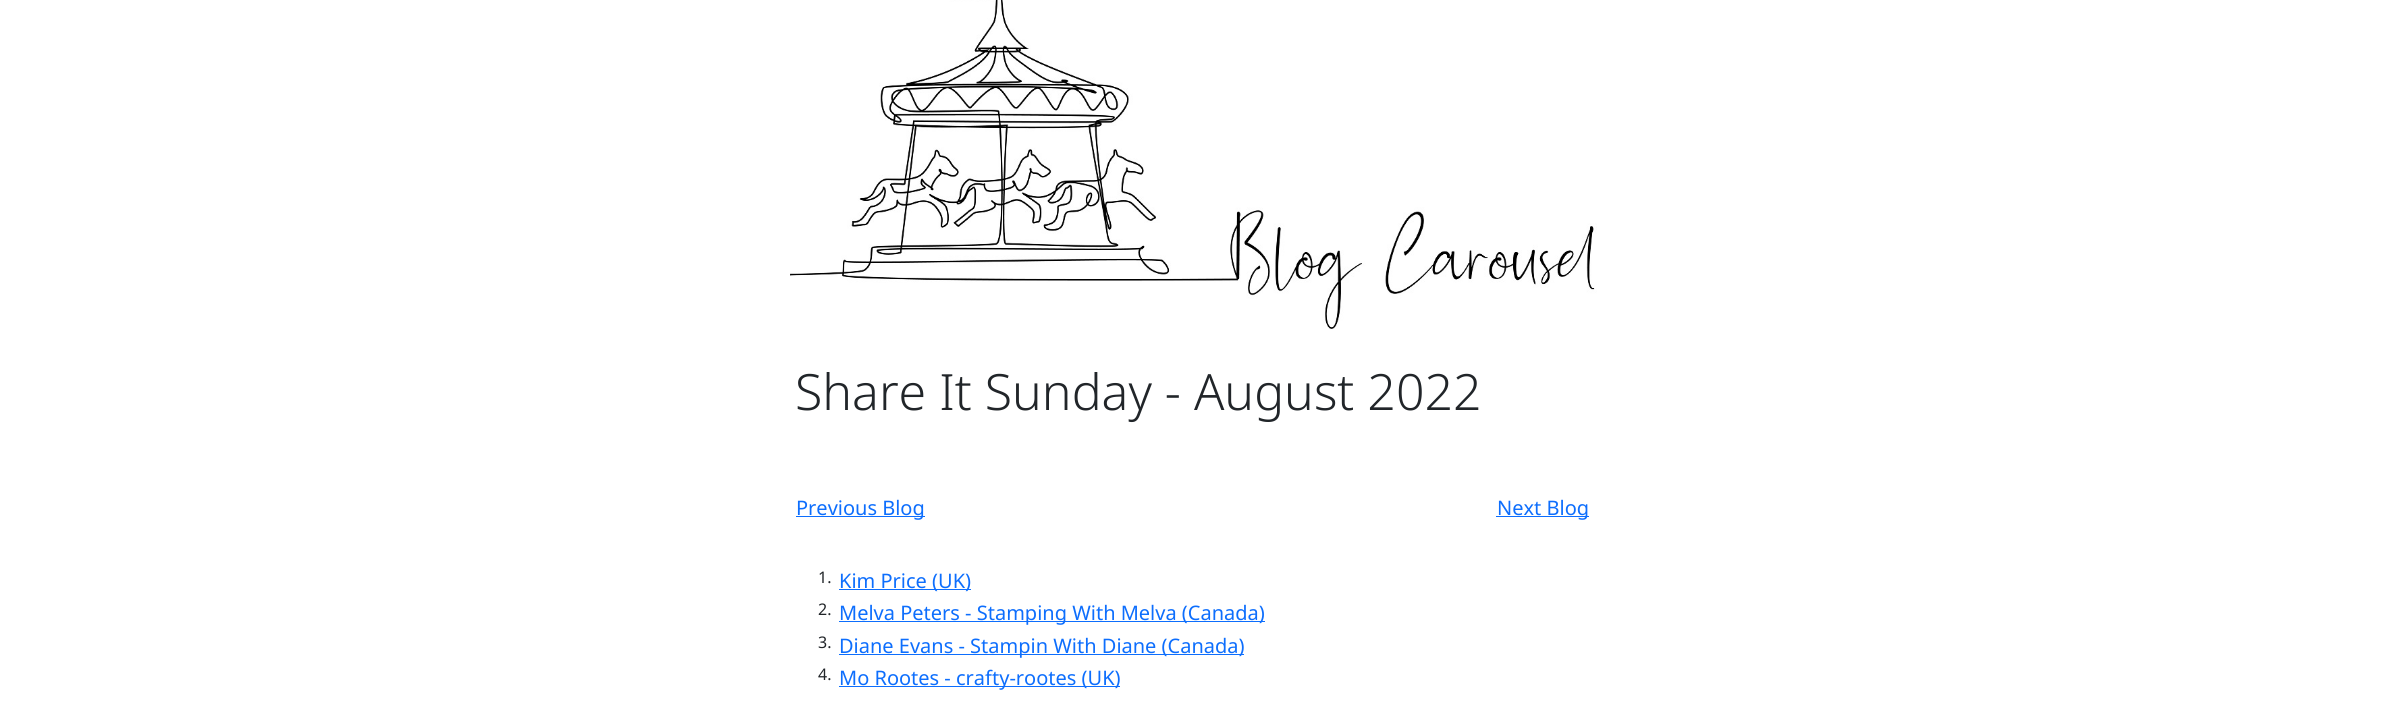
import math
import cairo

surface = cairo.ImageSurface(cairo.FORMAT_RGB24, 2384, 703)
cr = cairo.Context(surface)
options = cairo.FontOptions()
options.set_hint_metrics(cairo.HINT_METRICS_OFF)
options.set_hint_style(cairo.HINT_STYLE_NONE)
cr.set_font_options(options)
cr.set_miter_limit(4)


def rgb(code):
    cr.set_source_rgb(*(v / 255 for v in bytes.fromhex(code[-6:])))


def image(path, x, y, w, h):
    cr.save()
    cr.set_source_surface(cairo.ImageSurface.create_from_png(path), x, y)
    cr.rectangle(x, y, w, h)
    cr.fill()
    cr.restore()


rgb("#ffffff")
cr.paint()
image("img/1.png", 790, 0, 807, 330)
for x, y, w, h, color in [
    (796, 516, 129, 1, "#0d6efd"),
    (1496, 516, 93, 1, "#0d6efd"),
    (839, 589, 132, 1, "#0d6efd"),
    (839, 621, 426, 1, "#0d6efd"),
    (839, 654, 405, 1, "#0d6efd"),
    (839, 686, 281, 1, "#0d6efd"),
]:
    rgb(color)
    cr.rectangle(x, y, w, h)
    cr.fill()
cr.select_font_face("Noto Sans Light")
cr.set_font_size(50)
rgb("#212529")
cr.move_to(795, 410)
cr.show_text("Share It Sunday - August 2022")
cr.select_font_face("Noto Sans")
cr.set_font_size(20)
rgb("#0d6efd")
cr.move_to(796, 515)
cr.show_text("Previous Blog")
cr.move_to(1497, 515)
cr.show_text("Next Blog")
cr.set_font_size(16)
rgb("#212529")
cr.move_to(818, 583)
cr.show_text("1.")
cr.set_font_size(20)
rgb("#0d6efd")
cr.move_to(839, 588)
cr.show_text("Kim Price (UK)")
cr.set_font_size(16)
rgb("#212529")
cr.move_to(818, 615)
cr.show_text("2.")
cr.set_font_size(20)
rgb("#0d6efd")
cr.move_to(839, 620)
cr.show_text("Melva Peters - Stamping With Melva (Canada)")
cr.set_font_size(16)
rgb("#212529")
cr.move_to(818, 648)
cr.show_text("3.")
cr.set_font_size(20)
rgb("#0d6efd")
cr.move_to(839, 653)
cr.show_text("Diane Evans - Stampin With Diane (Canada)")
cr.set_font_size(16)
rgb("#212529")
cr.move_to(818, 680)
cr.show_text("4.")
cr.set_font_size(20)
rgb("#0d6efd")
cr.move_to(839, 685)
cr.show_text("Mo Rootes - crafty-rootes (UK)")
surface.write_to_png("page.png")
